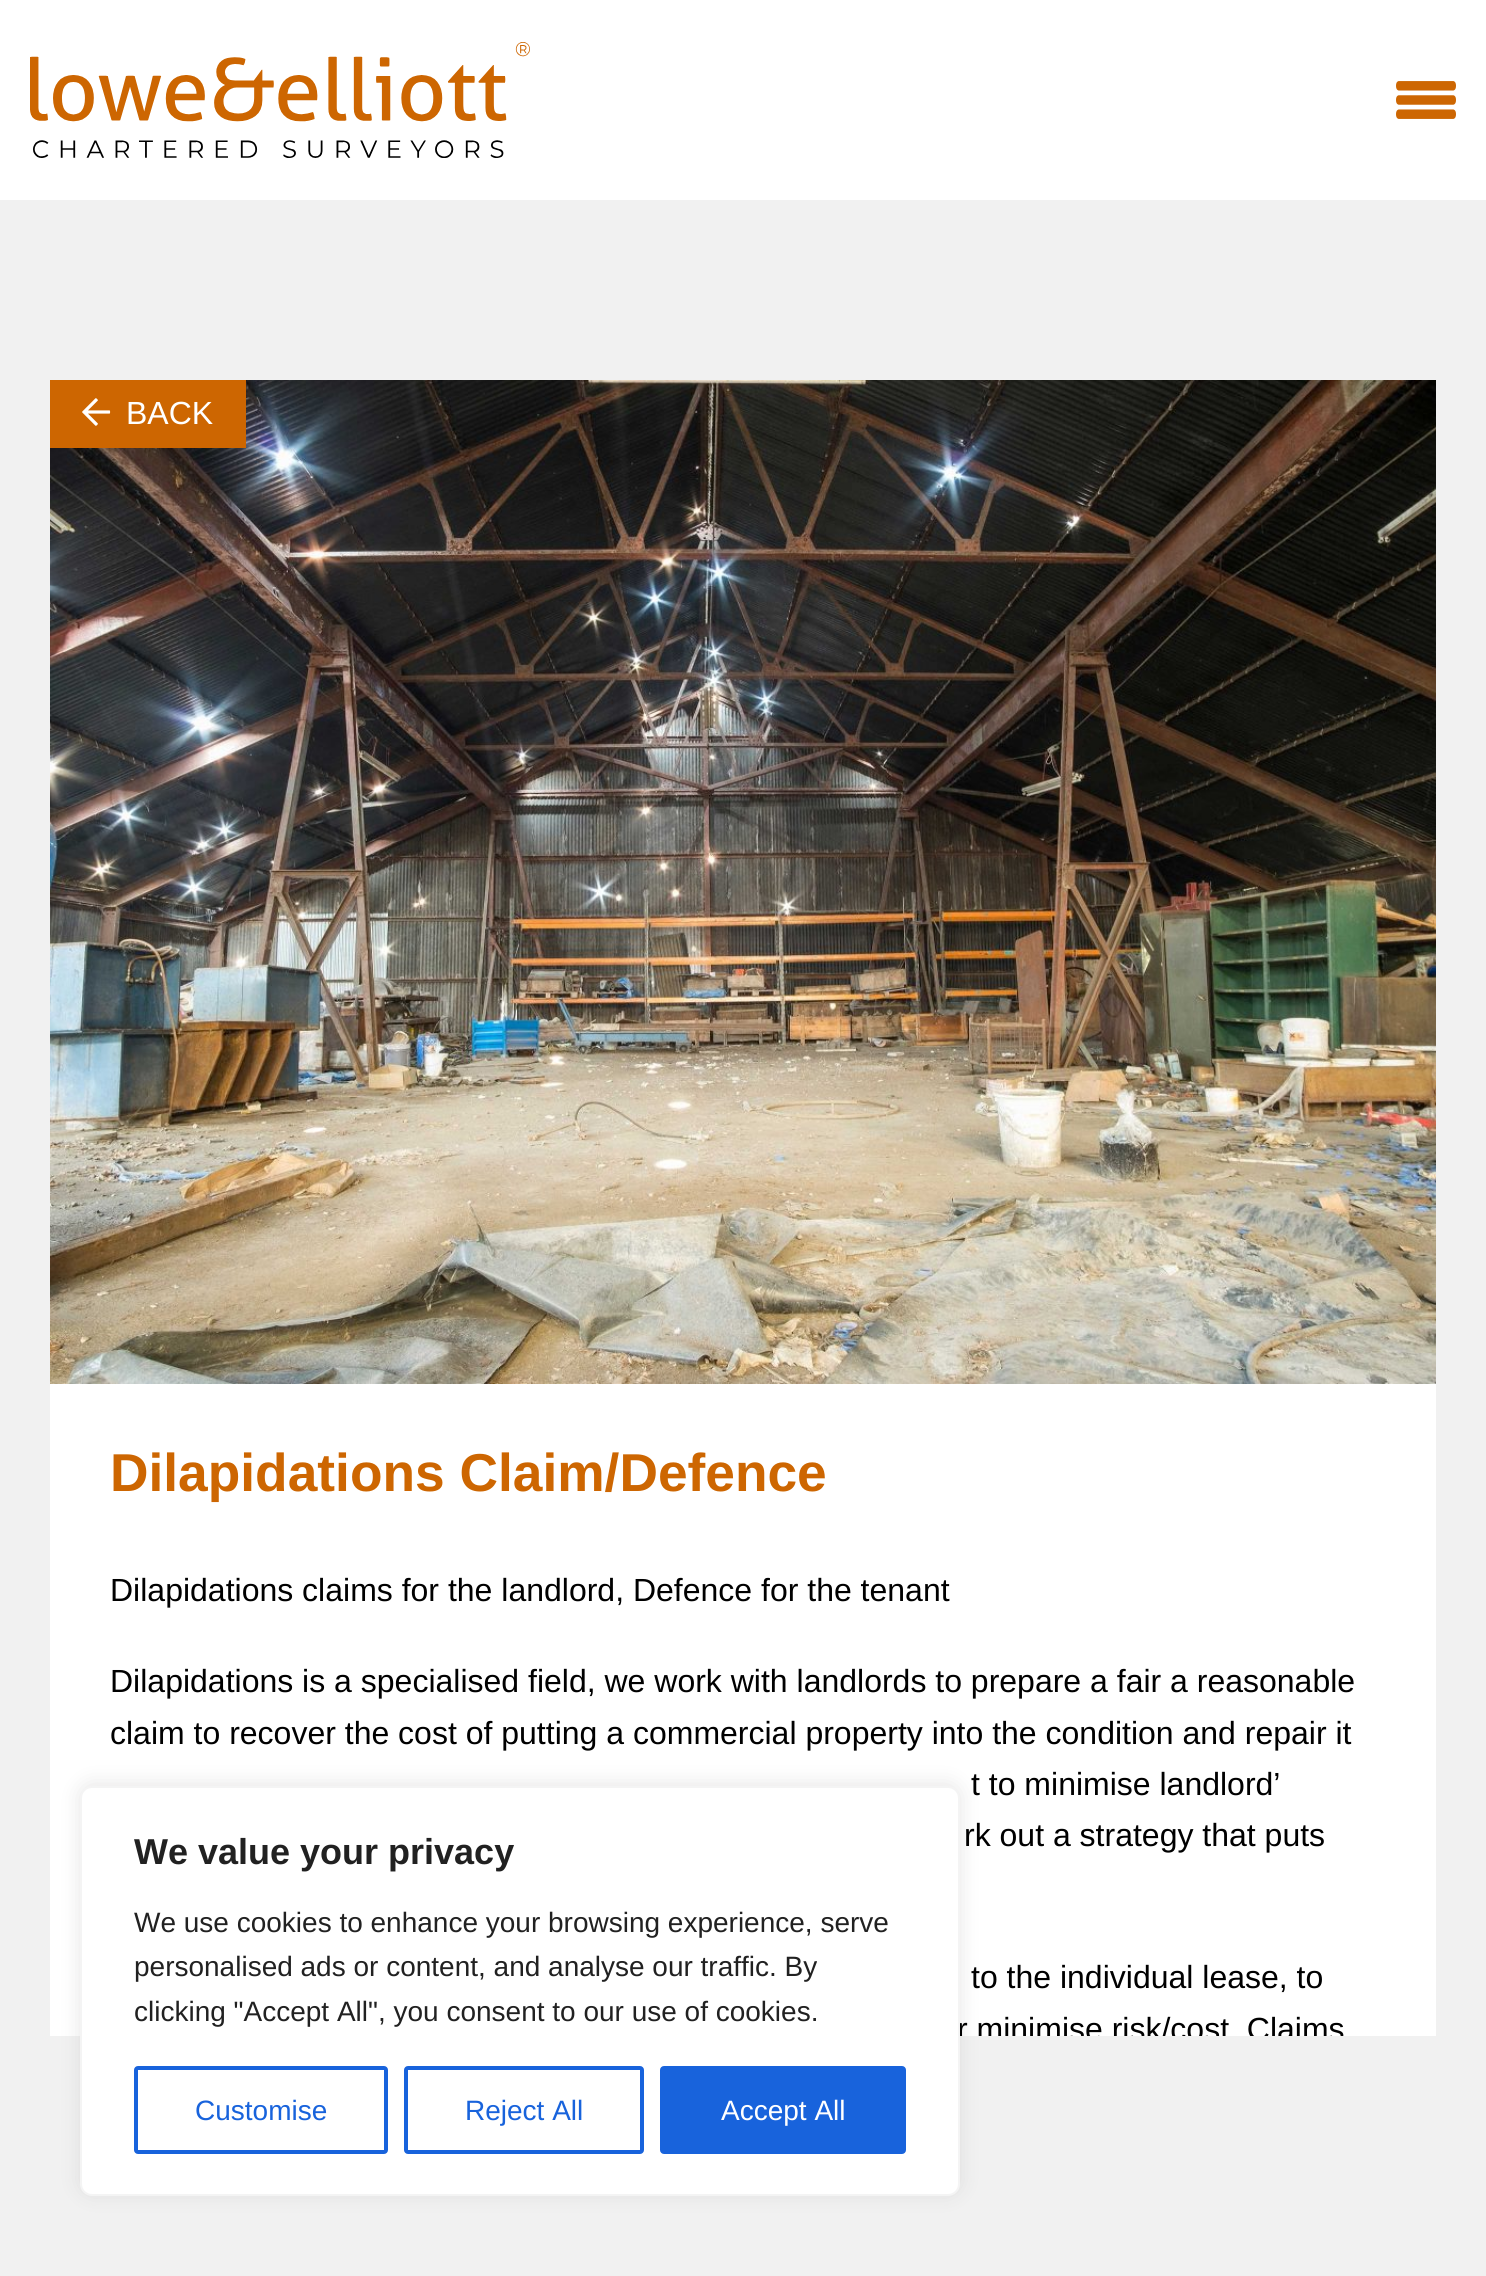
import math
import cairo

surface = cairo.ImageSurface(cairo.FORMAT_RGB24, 1486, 2276)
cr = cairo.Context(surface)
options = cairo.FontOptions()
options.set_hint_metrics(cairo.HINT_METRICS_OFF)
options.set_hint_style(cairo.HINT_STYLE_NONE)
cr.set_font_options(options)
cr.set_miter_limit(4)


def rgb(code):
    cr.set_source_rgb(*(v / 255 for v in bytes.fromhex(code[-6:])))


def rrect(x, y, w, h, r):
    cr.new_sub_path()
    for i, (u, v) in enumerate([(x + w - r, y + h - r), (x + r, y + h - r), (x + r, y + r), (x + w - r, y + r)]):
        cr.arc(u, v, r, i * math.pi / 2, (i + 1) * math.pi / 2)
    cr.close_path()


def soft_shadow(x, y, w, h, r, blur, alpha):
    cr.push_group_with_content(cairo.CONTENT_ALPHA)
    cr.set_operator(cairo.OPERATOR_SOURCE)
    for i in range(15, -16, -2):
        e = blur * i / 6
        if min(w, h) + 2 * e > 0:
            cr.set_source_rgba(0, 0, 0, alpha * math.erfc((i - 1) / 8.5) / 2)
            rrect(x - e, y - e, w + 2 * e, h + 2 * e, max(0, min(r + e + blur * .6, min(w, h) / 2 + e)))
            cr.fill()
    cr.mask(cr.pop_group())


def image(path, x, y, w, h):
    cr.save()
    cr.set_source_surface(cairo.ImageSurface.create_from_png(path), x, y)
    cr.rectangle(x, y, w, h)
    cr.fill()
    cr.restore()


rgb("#f1f1f1")
cr.paint()
rgb("#ffffff")
cr.rectangle(0, 0, 1486, 200)
cr.fill()
image("img/1.png", 30, 42, 500, 116)
image("img/2.png", 1396, 81, 60, 38)
image("img/3.png", 50, 380, 1386, 1004)
rgb("#cd6601")
cr.rectangle(50, 380, 196, 68)
cr.fill()
image("img/4.png", 82, 398, 29, 28)
rgb("#ffffff")
cr.rectangle(50, 1384, 1386, 652)
cr.fill()
rgb("#acabab")
soft_shadow(80, 1784, 880, 410, 12, 10, 0.3)
cr.select_font_face("Liberation Sans")
cr.set_font_size(32)
rgb("#ffffff")
cr.move_to(126, 424)
cr.show_text("BACK")
cr.select_font_face("Liberation Sans", cairo.FONT_SLANT_NORMAL, cairo.FONT_WEIGHT_BOLD)
cr.set_font_size(53.3)
rgb("#cd6601")
cr.move_to(110, 1491)
cr.show_text("Dilapidations Claim/Defence")
cr.select_font_face("Liberation Sans")
cr.set_font_size(32)
rgb("#000000")
for x, y, s in [
    (110, 1601, "Dilapidations claims for the landlord, Defence for the tenant"),
    (110, 1692, "Dilapidations is a specialised field, we work with landlords to prepare a fair a reasonable"),
    (110, 1744, "claim to recover the cost of putting a commercial property into the condition and repair it"),
    (971, 1795, "t to minimise landlord’"),
    (964, 1846, "rk out a strategy that puts"),
    (971, 1988, "to the individual lease, to"),
]:
    cr.move_to(x, y)
    cr.show_text(s)
cr.save()
cr.rectangle(50, 1384, 1386, 652)
cr.clip()
cr.move_to(957, 2040)
cr.show_text("r minimise risk/cost. Claims")
cr.restore()
rgb("#ffffff")
rrect(81, 1787, 878, 408, 11)
cr.fill_preserve()
rgb("#f4f4f4")
cr.stroke()
cr.select_font_face("Liberation Sans", cairo.FONT_SLANT_NORMAL, cairo.FONT_WEIGHT_BOLD)
cr.set_font_size(36)
rgb("#212121")
cr.move_to(134, 1864)
cr.show_text("We value your privacy")
cr.select_font_face("Liberation Sans")
cr.set_font_size(28)
for x, y, s in [
    (134, 1932, "We use cookies to enhance your browsing experience, serve"),
    (134, 1976, "personalised ads or content, and analyse our traffic. By"),
    (134, 2021, "clicking \"Accept All\", you consent to our use of cookies."),
]:
    cr.move_to(x, y)
    cr.show_text(s)
rrect(136, 2068, 250, 84, 2)
rgb("#1863dc")
cr.set_line_width(4)
cr.stroke()
cr.move_to(195, 2120)
cr.show_text("Customise")
rrect(406, 2068, 236, 84, 2)
cr.stroke()
cr.move_to(465, 2120)
cr.show_text("Reject All")
rrect(662, 2068, 242, 84, 2)
cr.fill_preserve()
cr.stroke()
rgb("#ffffff")
cr.move_to(721, 2120)
cr.show_text("Accept All")
surface.write_to_png("page.png")
